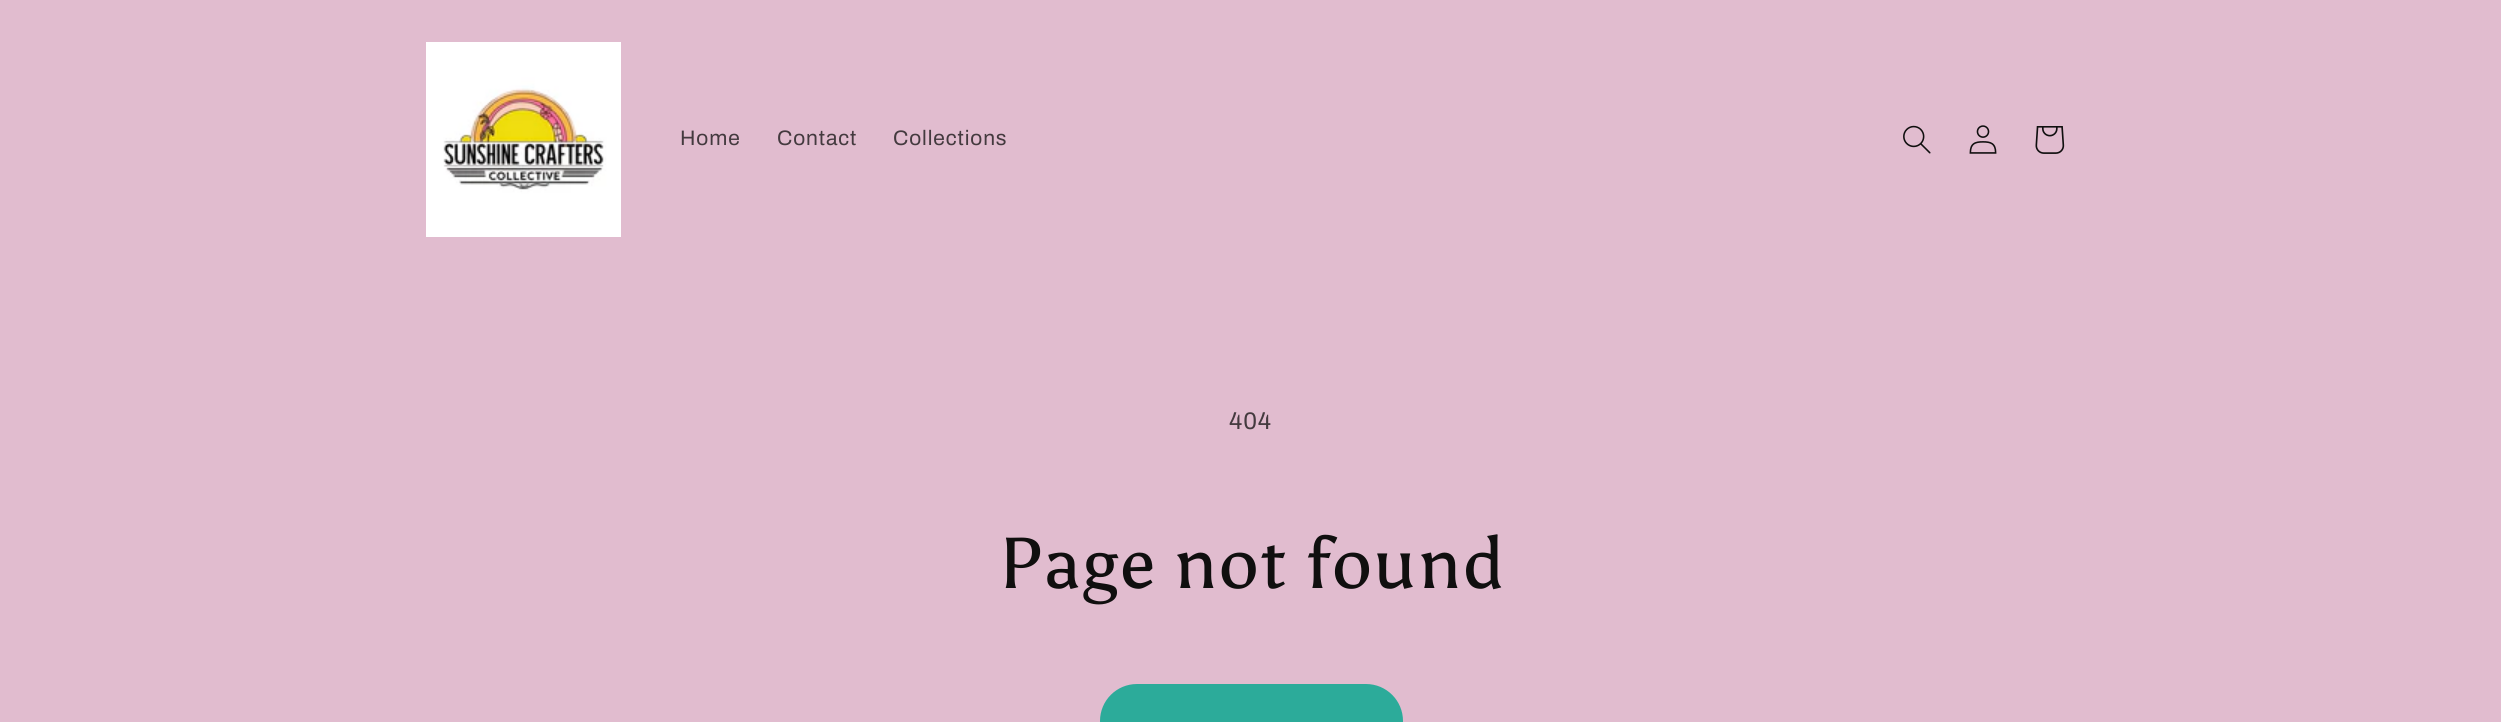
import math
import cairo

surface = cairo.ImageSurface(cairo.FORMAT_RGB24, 2501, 722)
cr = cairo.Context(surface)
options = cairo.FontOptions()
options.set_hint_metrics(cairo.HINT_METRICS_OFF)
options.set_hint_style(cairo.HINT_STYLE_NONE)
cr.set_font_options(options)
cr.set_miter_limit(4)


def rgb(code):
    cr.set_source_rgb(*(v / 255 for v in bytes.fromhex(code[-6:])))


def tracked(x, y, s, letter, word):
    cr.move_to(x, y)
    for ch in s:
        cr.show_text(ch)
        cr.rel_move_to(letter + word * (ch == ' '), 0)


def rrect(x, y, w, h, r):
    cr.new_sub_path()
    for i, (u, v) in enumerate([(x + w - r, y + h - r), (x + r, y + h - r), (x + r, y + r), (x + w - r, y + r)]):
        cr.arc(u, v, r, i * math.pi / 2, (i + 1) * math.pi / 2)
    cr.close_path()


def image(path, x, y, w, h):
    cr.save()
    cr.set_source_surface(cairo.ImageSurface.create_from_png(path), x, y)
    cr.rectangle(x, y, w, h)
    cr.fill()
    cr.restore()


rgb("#e1bccf")
cr.paint()
image("img/1.png", 426, 42, 195, 195)
image("img/2.png", 1903, 125, 28, 29)
image("img/3.png", 1969, 125, 28, 29)
image("img/4.png", 2035, 126, 30, 28)
rgb("#2cab9a")
rrect(1101.5, 685.5, 300, 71, 35.5)
cr.fill_preserve()
cr.set_line_width(3)
cr.stroke()
cr.select_font_face("Archivo")
cr.set_font_size(21)
rgb("#443a3f")
for x, y, s in [
    (680, 145, "Home"),
    (777, 145, "Contact"),
    (893, 145, "Collections"),
]:
    tracked(x, y, s, 0.9, 0)
cr.set_font_size(24)
tracked(1229, 429, "404", 0.9, 0)
cr.select_font_face("Asul")
cr.set_font_size(72)
rgb("#100f0f")
tracked(998, 588, "Page not found", 1.1, 0)
surface.write_to_png("page.png")
